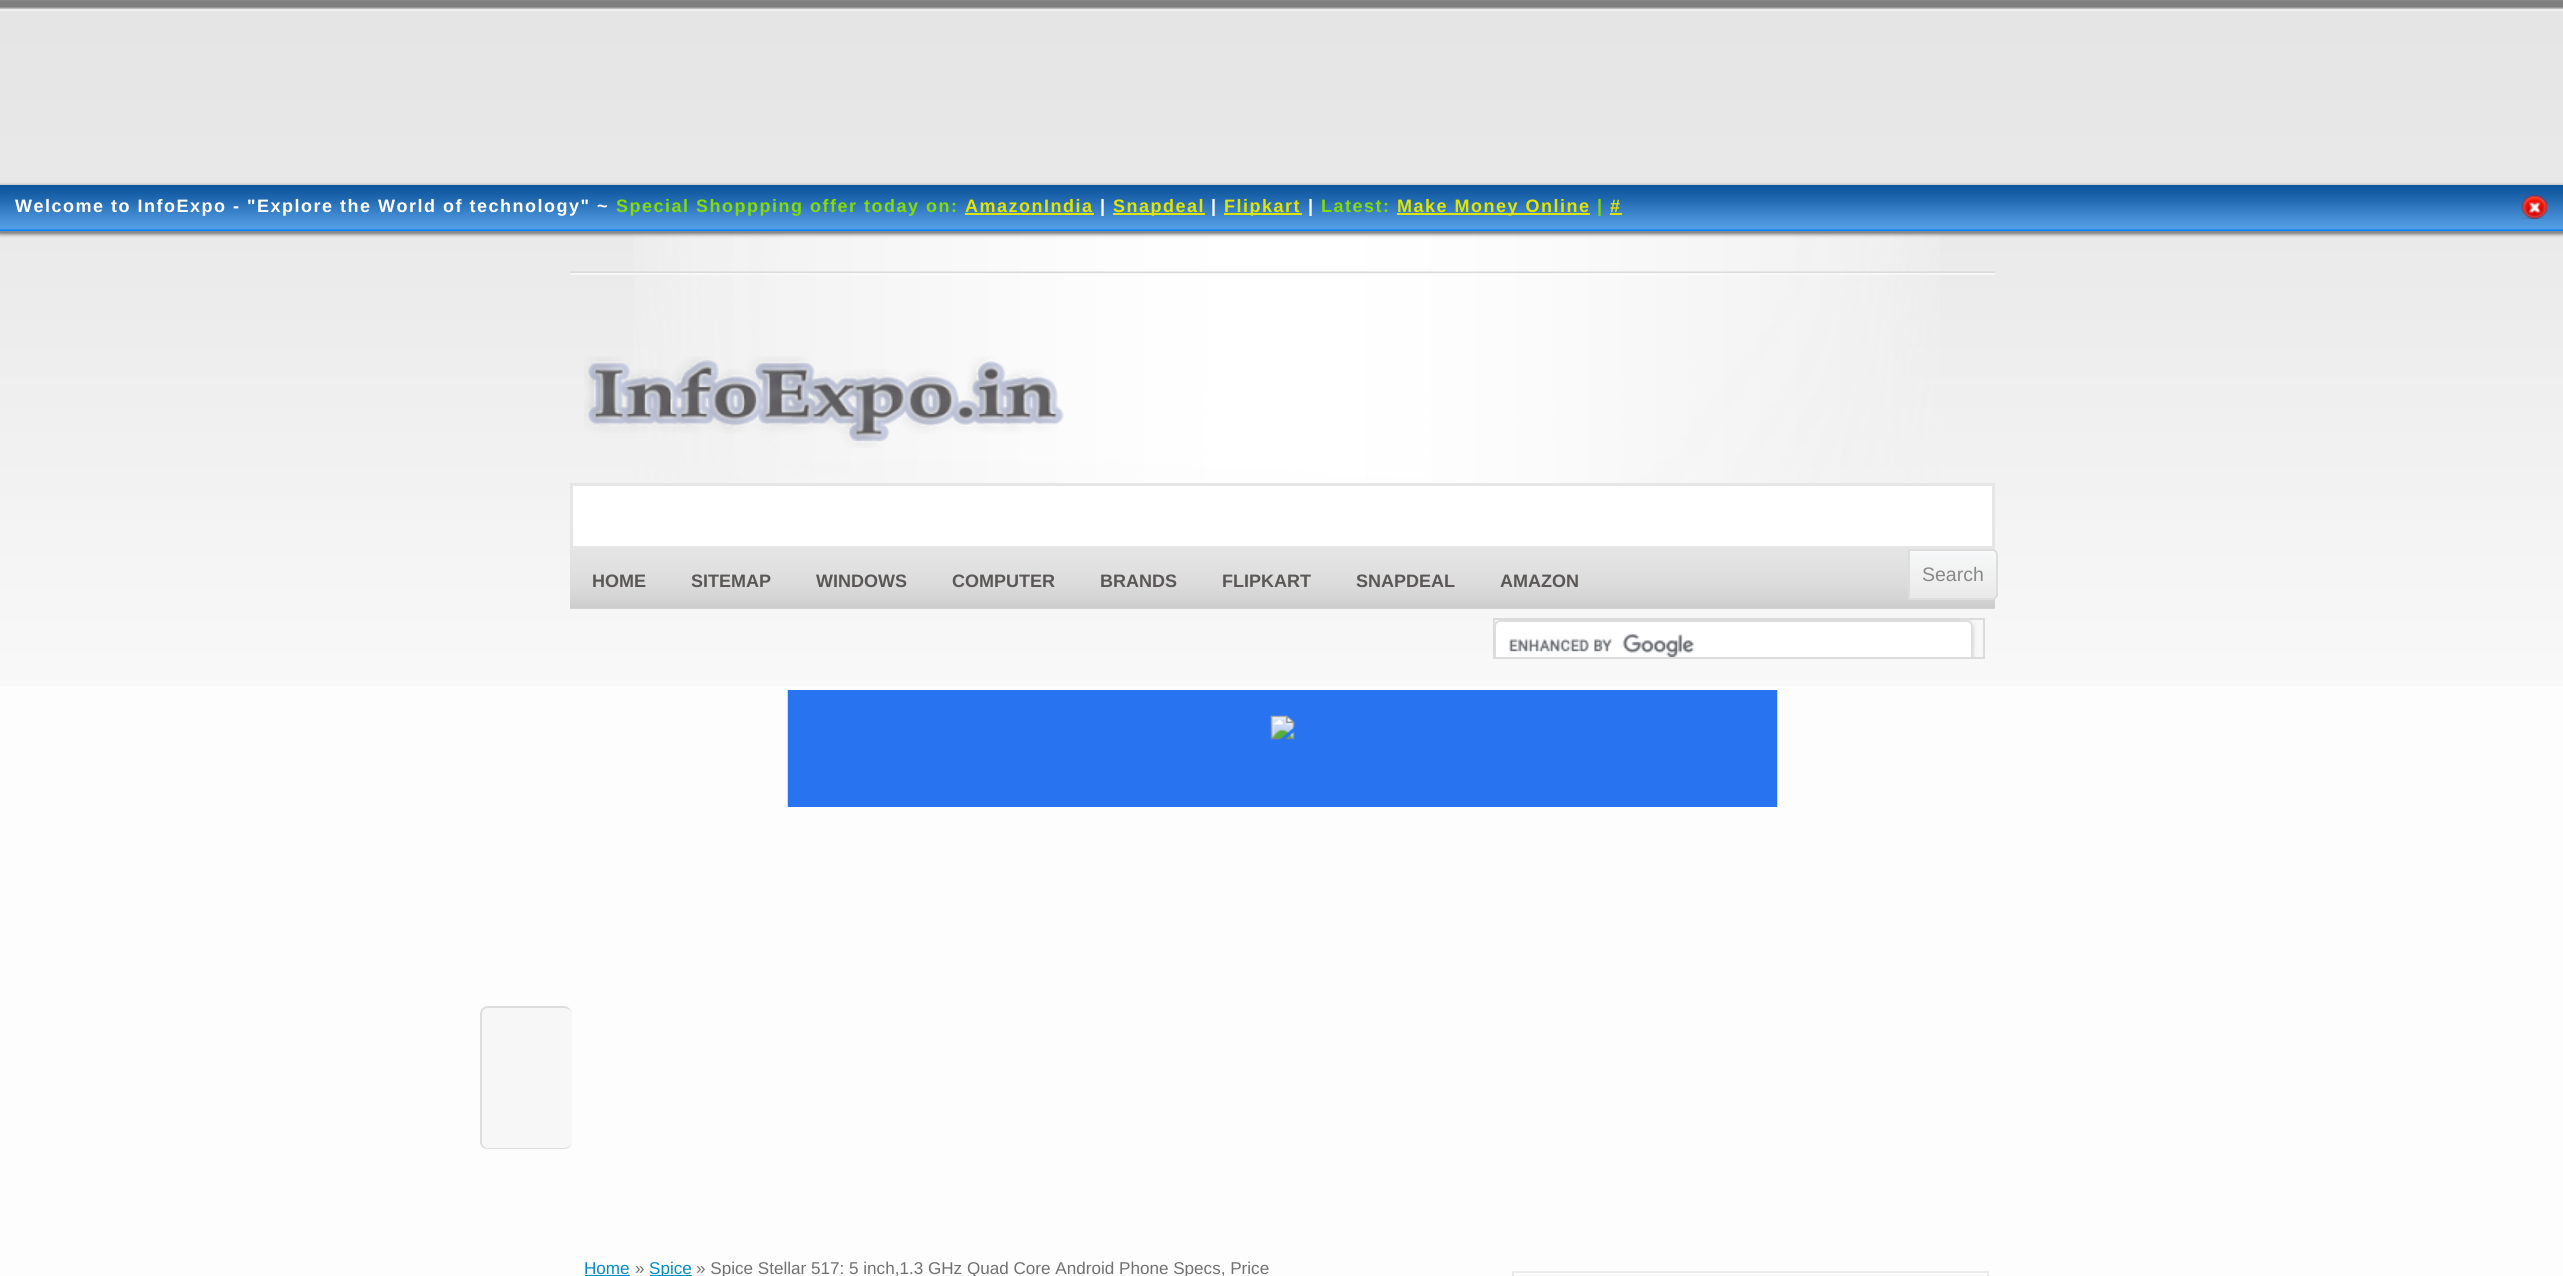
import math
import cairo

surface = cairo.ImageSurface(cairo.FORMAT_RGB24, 2563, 1276)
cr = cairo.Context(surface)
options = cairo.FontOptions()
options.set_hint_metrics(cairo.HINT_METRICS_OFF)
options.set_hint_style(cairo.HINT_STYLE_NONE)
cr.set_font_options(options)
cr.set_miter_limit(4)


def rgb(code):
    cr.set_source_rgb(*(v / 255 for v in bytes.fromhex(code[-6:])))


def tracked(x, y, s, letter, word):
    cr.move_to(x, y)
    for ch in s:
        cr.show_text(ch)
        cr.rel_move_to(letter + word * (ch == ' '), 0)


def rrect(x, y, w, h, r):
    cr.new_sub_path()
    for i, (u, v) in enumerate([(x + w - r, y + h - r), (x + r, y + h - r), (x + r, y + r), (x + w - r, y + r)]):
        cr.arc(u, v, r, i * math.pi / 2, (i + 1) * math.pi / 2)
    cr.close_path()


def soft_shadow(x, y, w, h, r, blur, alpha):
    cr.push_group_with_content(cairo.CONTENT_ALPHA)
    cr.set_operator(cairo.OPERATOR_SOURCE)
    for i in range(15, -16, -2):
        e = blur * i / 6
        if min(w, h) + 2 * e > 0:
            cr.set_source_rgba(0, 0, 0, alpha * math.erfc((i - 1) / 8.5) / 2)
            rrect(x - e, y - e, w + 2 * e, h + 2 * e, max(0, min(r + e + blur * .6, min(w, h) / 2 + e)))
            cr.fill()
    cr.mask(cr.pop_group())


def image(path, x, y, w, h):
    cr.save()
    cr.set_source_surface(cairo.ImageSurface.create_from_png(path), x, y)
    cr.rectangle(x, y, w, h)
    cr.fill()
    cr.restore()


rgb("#fdfdfd")
cr.paint()
image("img/1.png", 0, 0, 2563, 686)
image("img/4.png", 633, 233, 1307, 250)
rgb("#666666")
soft_shadow(0, 186, 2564, 48, 0, 2, 1)
rgb("#0080ff")
cr.rectangle(0, 185, 2563, 46)
cr.fill()
image("img/2.png", 0, 185, 2563, 45)
for x, y, w, h, color in [
    (0, 231, 2563, 2, "#888888"),
    (965, 213, 129, 2, "#e2e504"),
    (1113, 213, 92, 2, "#e2e504"),
    (1224, 213, 78, 2, "#e2e504"),
    (1397, 213, 193, 2, "#e2e504"),
    (1610, 213, 12, 2, "#e2e504"),
]:
    rgb(color)
    cr.rectangle(x, y, w, h)
    cr.fill()
image("img/3.png", 2521, 194, 26, 25)
image("img/5.png", 570, 271, 1425, 4)
image("img/6.png", 584, 356, 480, 92)
rgb("#ffffff")
cr.rectangle(571.5, 484.5, 1422, 63)
cr.fill_preserve()
rgb("#e6e6e6")
cr.set_line_width(3)
cr.stroke()
image("img/7.png", 570, 549, 1425, 60)
cr.rectangle(1494, 619, 490, 39)
rgb("#dcdada")
cr.set_line_width(2)
cr.stroke()
cr.save()
cr.new_path()
cr.move_to(1908, 549)
cr.line_to(1992, 549)
cr.curve_to(1995.5, 549, 1998, 551.5, 1998, 555)
cr.line_to(1998, 594)
cr.curve_to(1998, 597.5, 1995.5, 600, 1992, 600)
cr.line_to(1908, 600)
cr.close_path()
cr.clip()
gradient = cairo.LinearGradient(1953, 551, 1953, 599)
gradient.add_color_stop_rgba(0, 0.969, 0.973, 0.976, 1)
gradient.add_color_stop_rgba(1, 0.914, 0.914, 0.914, 1)
cr.set_source(gradient)
cr.rectangle(1910, 551, 88, 48)
cr.fill()
cr.restore()
rgb("#f9f9f9")
cr.new_path()
cr.move_to(1910, 552)
cr.line_to(1992, 552)
cr.curve_to(1997, 552, 1996, 560, 1996, 563)
cr.line_to(1996, 597)
cr.curve_to(1997, 596, 1997, 595, 1997, 594)
cr.line_to(1997, 556)
cr.curve_to(1997, 553, 1995, 551, 1992, 551)
cr.line_to(1910, 551)
cr.close_path()
cr.fill()
cr.new_path()
cr.move_to(1909, 550)
cr.line_to(1992, 550)
cr.curve_to(1995, 550, 1997, 552, 1997, 555)
cr.line_to(1997, 594)
cr.curve_to(1997, 597, 1995, 599, 1992, 599)
cr.line_to(1909, 599)
cr.close_path()
rgb("#dddddd")
cr.stroke()
cr.save()
cr.rectangle(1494, 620, 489, 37)
cr.clip()
rgb("#dfdfdf")
soft_shadow(1496, 621, 478, 51, 6, 1.5, 1)
cr.restore()
rgb("#ffffff")
cr.new_path()
cr.move_to(1500, 620)
cr.line_to(1967, 620)
cr.curve_to(1970.5, 620, 1973, 622.5, 1973, 626)
cr.line_to(1973, 657)
cr.line_to(1494, 657)
cr.line_to(1494, 626)
cr.curve_to(1494, 622.5, 1496.5, 620, 1500, 620)
cr.close_path()
cr.fill()
image("img/8.png", 1509, 634, 185, 23)
cr.save()
cr.rectangle(1494, 620, 489, 37)
cr.clip()
rrect(1495, 621, 477, 49, 5)
rgb("#dddddd")
cr.stroke()
cr.restore()
image("img/9.png", 787, 690, 991, 117)
rgb("#f7f7f7")
rrect(480, 1007, 92, 142, 8)
cr.fill()
rgb("#dddddd")
cr.set_fill_rule(cairo.FILL_RULE_EVEN_ODD)
cr.new_path()
cr.move_to(488, 1006)
cr.line_to(564, 1006)
cr.curve_to(568, 1006, 572, 1010, 572, 1014)
cr.line_to(572, 1142)
cr.curve_to(572, 1146, 568, 1149, 564, 1149)
cr.line_to(488, 1149)
cr.curve_to(483, 1149, 480, 1146, 480, 1142)
cr.line_to(480, 1014)
cr.curve_to(480, 1010, 483, 1006, 488, 1006)
cr.close_path()
cr.move_to(488, 1008)
cr.line_to(564, 1008)
cr.curve_to(568, 1008, 572, 1011, 572, 1014)
cr.line_to(572, 1142)
cr.curve_to(572, 1145, 568, 1148, 564, 1148)
cr.line_to(488, 1148)
cr.curve_to(484, 1148, 482, 1145, 482, 1142)
cr.line_to(482, 1014)
cr.curve_to(482, 1011, 484, 1008, 488, 1008)
cr.close_path()
cr.fill()
rgb("#018cc7")
cr.rectangle(585, 1275, 45, 1)
cr.fill()
cr.rectangle(650, 1275, 42, 1)
cr.fill()
cr.rectangle(1513, 1272, 475, 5)
rgb("#eaeaea")
cr.stroke()
cr.select_font_face("Liberation Sans", cairo.FONT_SLANT_NORMAL, cairo.FONT_WEIGHT_BOLD)
cr.set_font_size(18)
rgb("#ffffff")
tracked(15, 212, "Welcome to InfoExpo - \"Explore the World of technology\" ~", 1.5, 0)
rgb("#84dc04")
tracked(616, 212, "Special Shoppping offer today on:", 1.5, 0)
rgb("#e2e504")
tracked(965, 212, "AmazonIndia", 1.5, 0)
rgb("#ffffff")
tracked(1100, 212, "|", 1.5, 0)
rgb("#e2e504")
tracked(1113, 212, "Snapdeal", 1.5, 0)
rgb("#ffffff")
tracked(1211, 212, "|", 1.5, 0)
rgb("#e2e504")
tracked(1224, 212, "Flipkart", 1.5, 0)
rgb("#ffffff")
tracked(1308, 212, "|", 1.5, 0)
rgb("#84dc04")
tracked(1321, 212, "Latest:", 1.5, 0)
rgb("#e2e504")
tracked(1397, 212, "Make Money Online", 1.5, 0)
rgb("#84dc04")
tracked(1597, 212, "|", 1.5, 0)
rgb("#e2e504")
tracked(1610, 212, "#", 1.5, 0)
rgb("#5b5757")
for x, y, s in [
    (592, 587, "HOME"),
    (691, 587, "SITEMAP"),
    (816, 587, "WINDOWS"),
    (952, 587, "COMPUTER"),
    (1100, 587, "BRANDS"),
    (1222, 587, "FLIPKART"),
    (1356, 587, "SNAPDEAL"),
    (1500, 587, "AMAZON"),
]:
    cr.move_to(x, y)
    cr.show_text(s)
cr.select_font_face("Liberation Sans")
cr.set_font_size(19.5)
rgb("#888888")
cr.move_to(1922, 581)
cr.show_text("Search")
cr.set_font_size(17.1)
rgb("#018cc7")
cr.move_to(584, 1274)
cr.show_text("Home")
rgb("#707070")
cr.move_to(635, 1274)
cr.show_text("»")
rgb("#018cc7")
cr.move_to(649, 1274)
cr.show_text("Spice")
rgb("#707070")
cr.move_to(696, 1274)
cr.show_text("» Spice Stellar 517: 5 inch,1.3 GHz Quad Core Android Phone Specs, Price")
surface.write_to_png("page.png")
